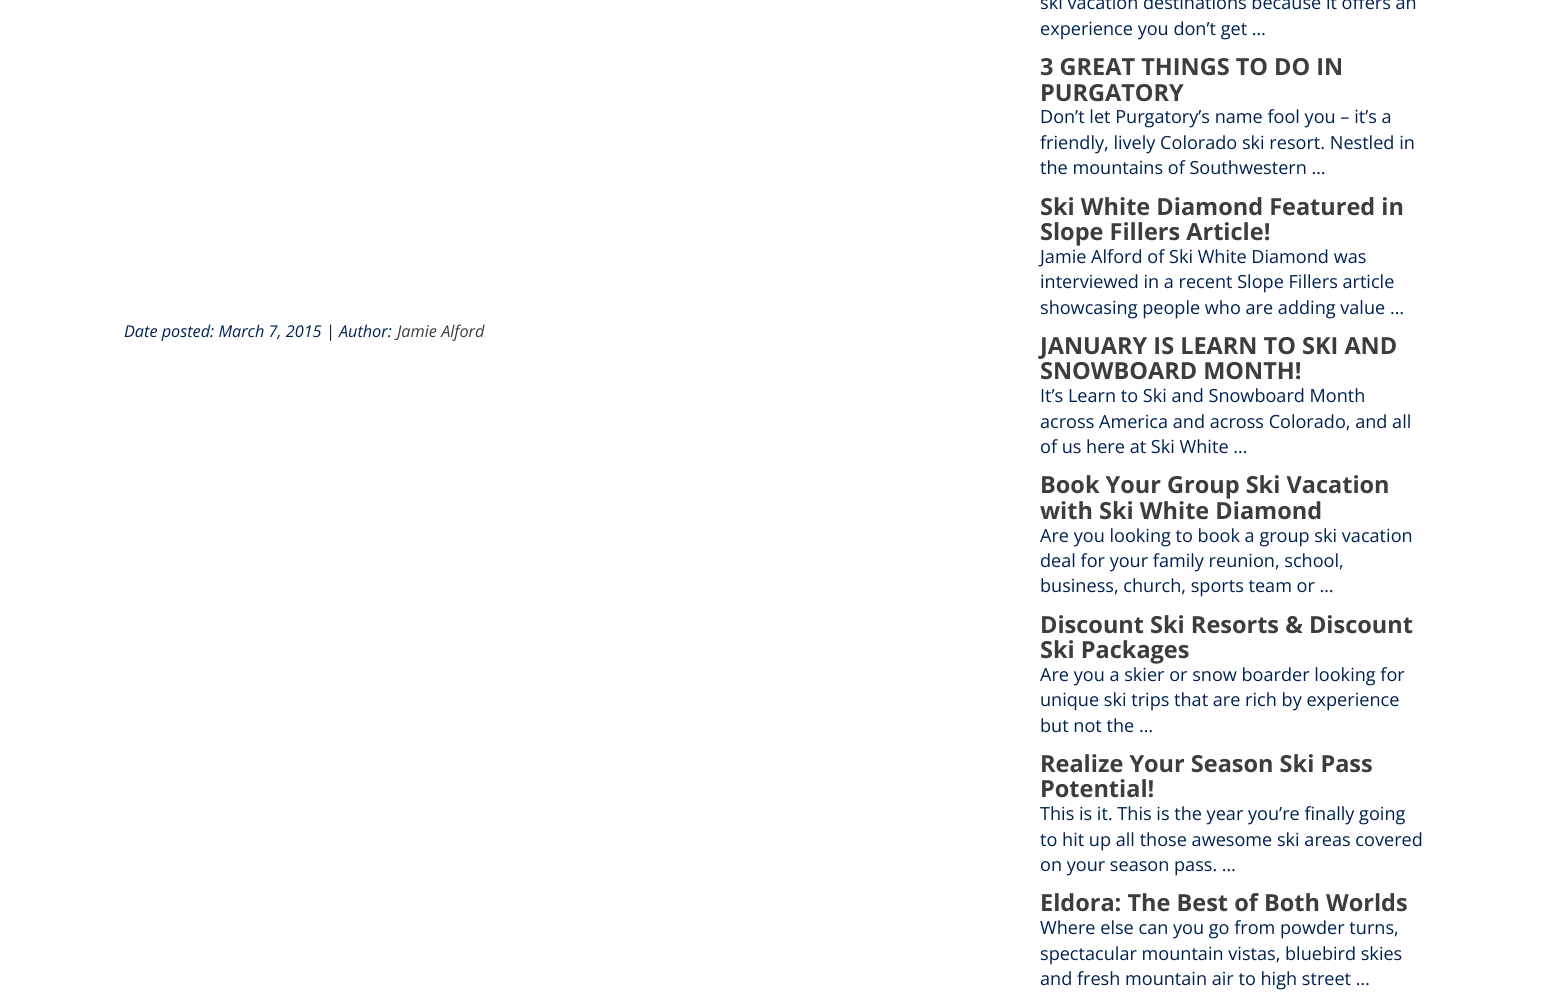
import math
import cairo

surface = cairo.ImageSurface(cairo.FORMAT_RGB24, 1548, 1006)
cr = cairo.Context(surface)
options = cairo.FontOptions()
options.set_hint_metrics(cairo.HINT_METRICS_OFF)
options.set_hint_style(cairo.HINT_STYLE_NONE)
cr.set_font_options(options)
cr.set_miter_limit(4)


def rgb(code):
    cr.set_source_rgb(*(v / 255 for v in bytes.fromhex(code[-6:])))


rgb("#ffffff")
cr.paint()
cr.select_font_face("Open Sans", cairo.FONT_SLANT_ITALIC)
cr.set_font_size(16.25)
rgb("#002051")
cr.move_to(124, 337)
cr.show_text("Date posted: March 7, 2015 | Author:")
rgb("#403c3d")
cr.move_to(397, 337)
cr.show_text("Jamie Alford")
cr.select_font_face("Open Sans")
cr.set_font_size(18.1)
rgb("#002051")
cr.move_to(1040, 9)
cr.show_text("ski vacation destinations because it offers an")
cr.move_to(1040, 35)
cr.show_text("experience you don’t get …")
cr.select_font_face("Open Sans", cairo.FONT_SLANT_NORMAL, cairo.FONT_WEIGHT_BOLD)
cr.set_font_size(23.5)
rgb("#403c3d")
cr.move_to(1040, 75)
cr.show_text("3 GREAT THINGS TO DO IN")
cr.move_to(1040, 101)
cr.show_text("PURGATORY")
cr.select_font_face("Open Sans")
cr.set_font_size(18.1)
rgb("#002051")
for x, y, s in [
    (1040, 123, "Don’t let Purgatory’s name fool you – it’s a"),
    (1040, 149, "friendly, lively Colorado ski resort. Nestled in"),
    (1040, 174, "the mountains of Southwestern …"),
]:
    cr.move_to(x, y)
    cr.show_text(s)
cr.select_font_face("Open Sans", cairo.FONT_SLANT_NORMAL, cairo.FONT_WEIGHT_BOLD)
cr.set_font_size(23.5)
rgb("#403c3d")
cr.move_to(1040, 215)
cr.show_text("Ski White Diamond Featured in")
cr.move_to(1040, 240)
cr.show_text("Slope Fillers Article!")
cr.select_font_face("Open Sans")
cr.set_font_size(18.1)
rgb("#002051")
for x, y, s in [
    (1040, 263, "Jamie Alford of Ski White Diamond was"),
    (1040, 288, "interviewed in a recent Slope Fillers article"),
    (1040, 314, "showcasing people who are adding value …"),
]:
    cr.move_to(x, y)
    cr.show_text(s)
cr.select_font_face("Open Sans", cairo.FONT_SLANT_NORMAL, cairo.FONT_WEIGHT_BOLD)
cr.set_font_size(23.5)
rgb("#403c3d")
cr.move_to(1040, 354)
cr.show_text("JANUARY IS LEARN TO SKI AND")
cr.move_to(1040, 379)
cr.show_text("SNOWBOARD MONTH!")
cr.select_font_face("Open Sans")
cr.set_font_size(18.1)
rgb("#002051")
for x, y, s in [
    (1040, 402, "It’s Learn to Ski and Snowboard Month"),
    (1040, 428, "across America and across Colorado, and all"),
    (1040, 453, "of us here at Ski White …"),
]:
    cr.move_to(x, y)
    cr.show_text(s)
cr.select_font_face("Open Sans", cairo.FONT_SLANT_NORMAL, cairo.FONT_WEIGHT_BOLD)
cr.set_font_size(23.5)
rgb("#403c3d")
cr.move_to(1040, 493)
cr.show_text("Book Your Group Ski Vacation")
cr.move_to(1040, 519)
cr.show_text("with Ski White Diamond")
cr.select_font_face("Open Sans")
cr.set_font_size(18.1)
rgb("#002051")
for x, y, s in [
    (1040, 542, "Are you looking to book a group ski vacation"),
    (1040, 567, "deal for your family reunion, school,"),
    (1040, 592, "business, church, sports team or …"),
]:
    cr.move_to(x, y)
    cr.show_text(s)
cr.select_font_face("Open Sans", cairo.FONT_SLANT_NORMAL, cairo.FONT_WEIGHT_BOLD)
cr.set_font_size(23.5)
rgb("#403c3d")
cr.move_to(1040, 633)
cr.show_text("Discount Ski Resorts & Discount")
cr.move_to(1040, 658)
cr.show_text("Ski Packages")
cr.select_font_face("Open Sans")
cr.set_font_size(18.1)
rgb("#002051")
for x, y, s in [
    (1040, 681, "Are you a skier or snow boarder looking for"),
    (1040, 706, "unique ski trips that are rich by experience"),
    (1040, 732, "but not the …"),
]:
    cr.move_to(x, y)
    cr.show_text(s)
cr.select_font_face("Open Sans", cairo.FONT_SLANT_NORMAL, cairo.FONT_WEIGHT_BOLD)
cr.set_font_size(23.5)
rgb("#403c3d")
cr.move_to(1040, 772)
cr.show_text("Realize Your Season Ski Pass")
cr.move_to(1040, 797)
cr.show_text("Potential!")
cr.select_font_face("Open Sans")
cr.set_font_size(18.1)
rgb("#002051")
for x, y, s in [
    (1040, 820, "This is it. This is the year you’re finally going"),
    (1040, 846, "to hit up all those awesome ski areas covered"),
    (1040, 871, "on your season pass. …"),
]:
    cr.move_to(x, y)
    cr.show_text(s)
cr.select_font_face("Open Sans", cairo.FONT_SLANT_NORMAL, cairo.FONT_WEIGHT_BOLD)
cr.set_font_size(23.5)
rgb("#403c3d")
cr.move_to(1040, 911)
cr.show_text("Eldora: The Best of Both Worlds")
cr.select_font_face("Open Sans")
cr.set_font_size(18.1)
rgb("#002051")
for x, y, s in [
    (1040, 934, "Where else can you go from powder turns,"),
    (1040, 960, "spectacular mountain vistas, bluebird skies"),
    (1040, 985, "and fresh mountain air to high street …"),
]:
    cr.move_to(x, y)
    cr.show_text(s)
surface.write_to_png("page.png")
